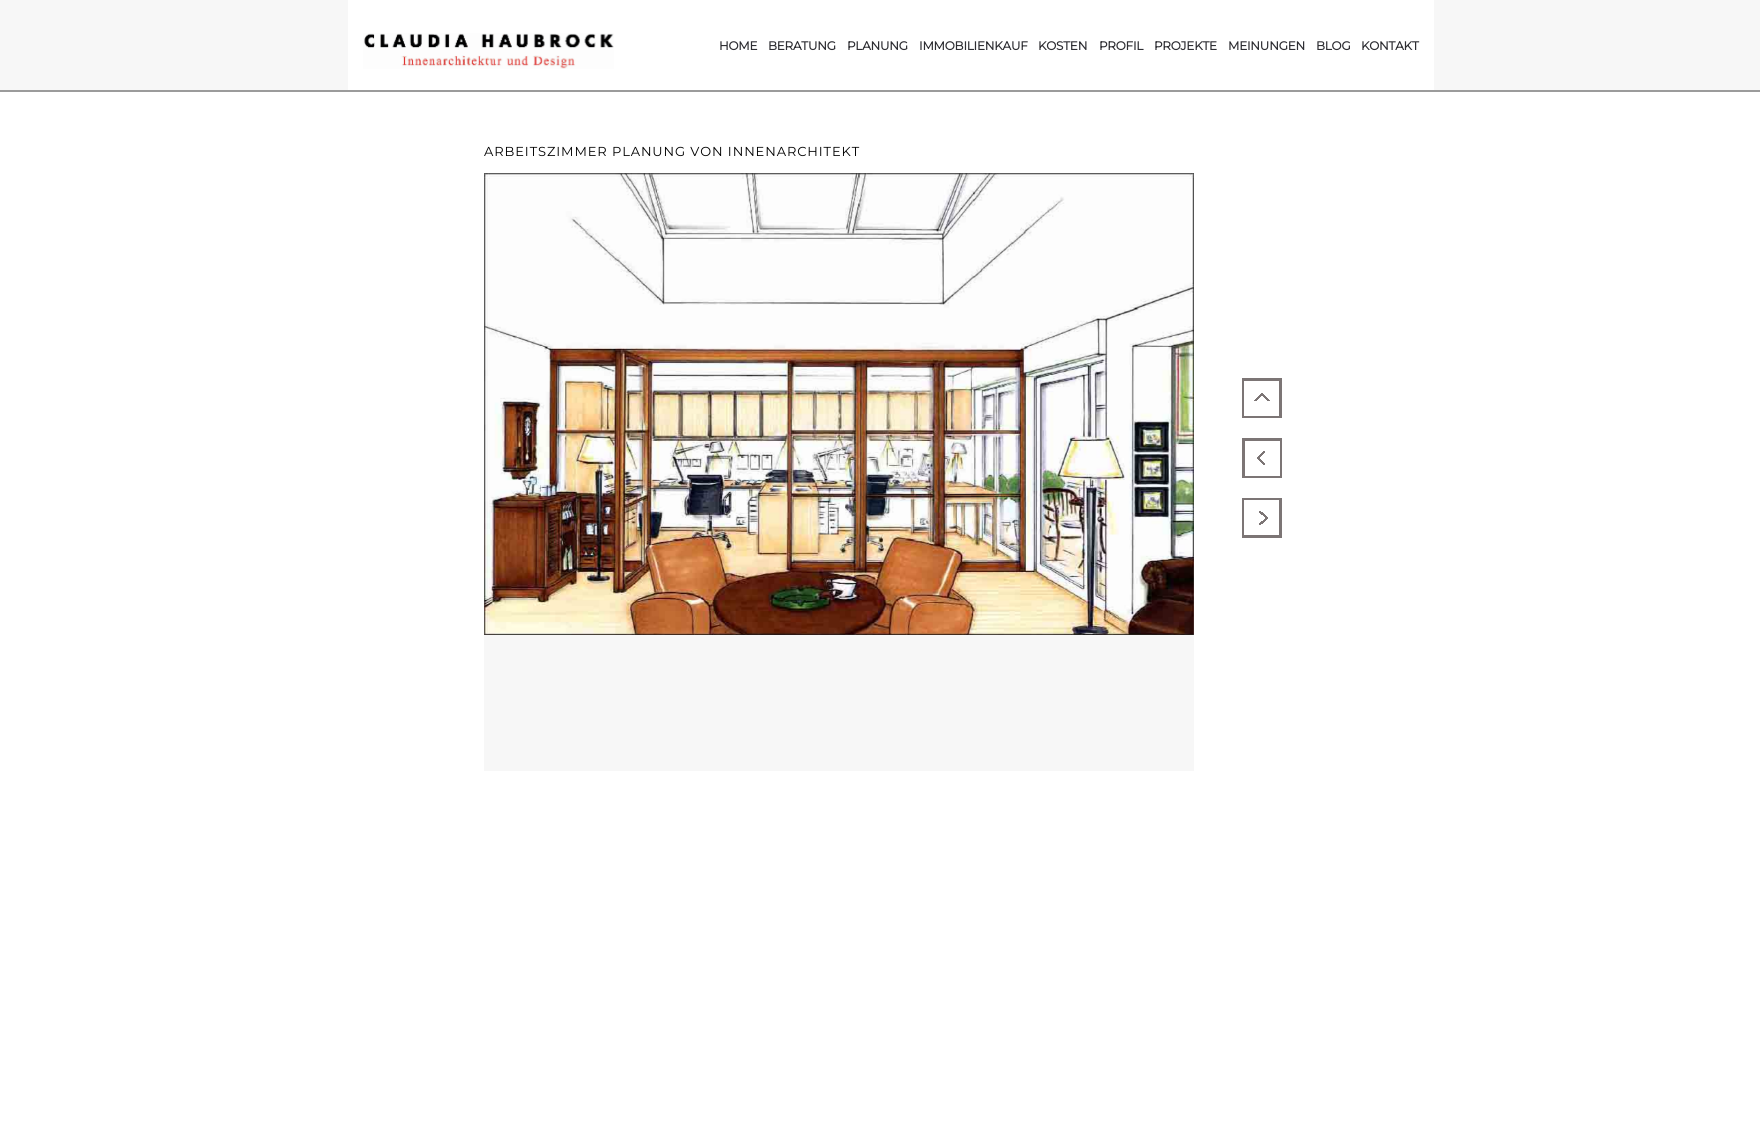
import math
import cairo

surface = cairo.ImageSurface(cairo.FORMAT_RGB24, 1760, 1135)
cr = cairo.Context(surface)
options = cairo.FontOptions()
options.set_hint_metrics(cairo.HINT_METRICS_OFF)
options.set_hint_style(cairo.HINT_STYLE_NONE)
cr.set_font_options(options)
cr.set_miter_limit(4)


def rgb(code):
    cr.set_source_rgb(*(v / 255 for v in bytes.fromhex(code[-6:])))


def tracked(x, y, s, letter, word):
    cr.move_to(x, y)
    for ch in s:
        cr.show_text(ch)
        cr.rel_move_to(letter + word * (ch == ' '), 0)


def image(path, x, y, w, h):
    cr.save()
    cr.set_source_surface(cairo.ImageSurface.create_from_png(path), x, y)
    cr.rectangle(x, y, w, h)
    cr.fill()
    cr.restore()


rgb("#ffffff")
cr.paint()
rgb("#f7f7f7")
cr.rectangle(0, 0, 1760, 90)
cr.fill()
rgb("#ffffff")
cr.rectangle(348, 0, 1086, 90)
cr.fill()
image("img/1.png", 363, 33, 251, 36)
rgb("#9b9b9b")
cr.rectangle(0, 90, 1760, 2)
cr.fill()
rgb("#f7f7f7")
cr.rectangle(484, 173, 710, 598)
cr.fill()
image("img/2.png", 484, 173, 710, 462)
image("img/3.png", 1242, 378, 40, 40)
image("img/4.png", 1242, 438, 40, 40)
image("img/5.png", 1242, 498, 40, 40)
cr.select_font_face("Montserrat", cairo.FONT_SLANT_NORMAL, cairo.FONT_WEIGHT_BOLD)
cr.set_font_size(12)
rgb("#2e2e33")
for x, y, s in [
    (719, 50, "HOME"),
    (768, 50, "BERATUNG"),
    (847, 50, "PLANUNG"),
    (919, 50, "IMMOBILIENKAUF"),
    (1038, 50, "KOSTEN"),
    (1099, 50, "PROFIL"),
    (1154, 50, "PROJEKTE"),
    (1228, 50, "MEINUNGEN"),
    (1316, 50, "BLOG"),
    (1361, 50, "KONTAKT"),
]:
    tracked(x, y, s, -0.25, 0)
cr.select_font_face("Montserrat Thin")
cr.set_font_size(13)
rgb("#000000")
tracked(484, 156, "ARBEITSZIMMER PLANUNG VON INNENARCHITEKT", 0.9, 0)
surface.write_to_png("page.png")
